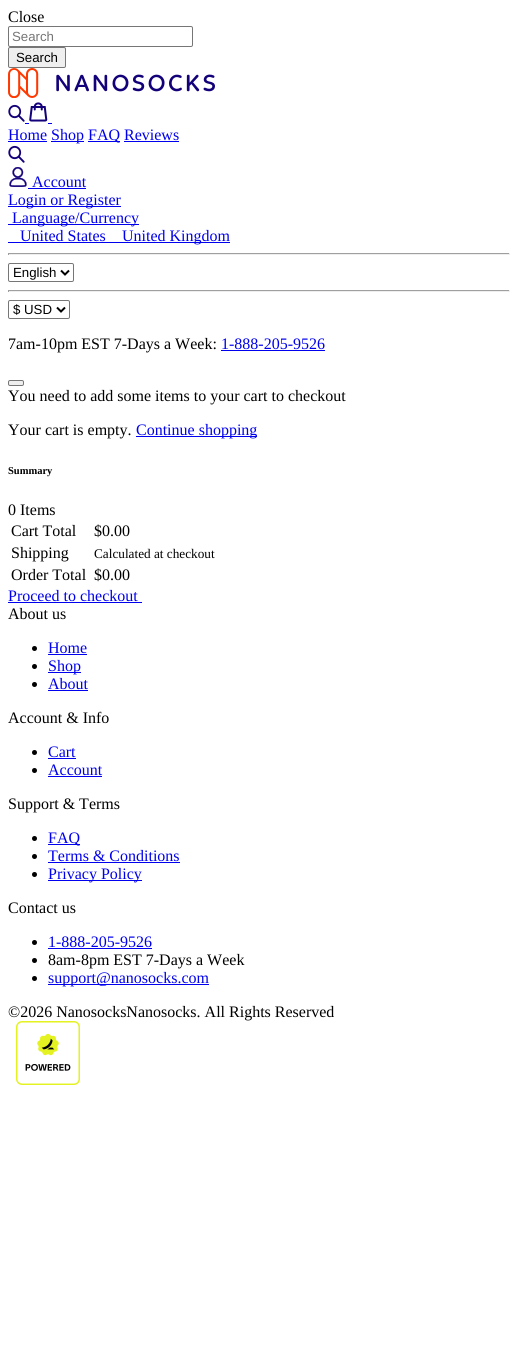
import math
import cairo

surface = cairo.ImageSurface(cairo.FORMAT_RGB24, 518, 1351)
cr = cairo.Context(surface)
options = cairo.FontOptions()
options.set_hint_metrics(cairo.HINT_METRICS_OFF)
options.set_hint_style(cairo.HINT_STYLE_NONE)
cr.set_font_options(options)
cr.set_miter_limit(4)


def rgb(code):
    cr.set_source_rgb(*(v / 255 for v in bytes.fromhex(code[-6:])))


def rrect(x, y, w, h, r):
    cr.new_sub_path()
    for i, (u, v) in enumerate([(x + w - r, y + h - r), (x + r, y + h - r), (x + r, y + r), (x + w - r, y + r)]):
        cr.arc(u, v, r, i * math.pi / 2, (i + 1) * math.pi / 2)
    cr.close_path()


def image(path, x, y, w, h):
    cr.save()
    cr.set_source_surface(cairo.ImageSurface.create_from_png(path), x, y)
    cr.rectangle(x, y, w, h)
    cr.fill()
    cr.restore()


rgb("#ffffff")
cr.paint()
rrect(8.5, 26.5, 184, 20, 1.5)
rgb("#767676")
cr.set_line_width(1)
cr.stroke()
rgb("#efefef")
rrect(8.5, 47.5, 57, 20, 1.5)
cr.fill_preserve()
rgb("#767676")
cr.stroke()
image("img/1.png", 8, 68, 207, 30)
image("img/2.png", 8, 104, 17, 18)
image("img/3.png", 29, 102, 19, 20)
for x, y, w, h, color in [
    (25, 123, 4, 1, "#0000ee"),
    (48, 123, 4, 1, "#0000ee"),
    (8, 141, 39, 1, "#0000ee"),
    (51, 141, 33, 1, "#0000ee"),
    (88, 141, 32, 1, "#0000ee"),
    (124, 141, 55, 1, "#0000ee"),
]:
    rgb(color)
    cr.rectangle(x, y, w, h)
    cr.fill()
image("img/2.png", 8, 145, 17, 18)
image("img/4.png", 9, 167, 18, 20)
for x, y, w, h, color in [
    (28, 188, 58, 1, "#0000ee"),
    (8, 206, 113, 1, "#0000ee"),
    (8, 224, 131, 1, "#0000ee"),
    (8, 242, 222, 1, "#0000ee"),
    (8, 253, 502, 1, "#9f9f9f"),
    (509, 253, 1, 2, "#eeeeee"),
    (8, 254, 502, 1, "#eeeeee"),
    (8, 253, 1, 2, "#9f9f9f"),
]:
    rgb(color)
    cr.rectangle(x, y, w, h)
    cr.fill()
rrect(8.5, 263.5, 65, 18, 1.5)
rgb("#767676")
cr.stroke()
cr.new_path()
cr.move_to(61, 270.5)
cr.line_to(65, 274.5)
cr.line_to(69, 270.5)
rgb("#000000")
cr.set_line_width(2)
cr.stroke()
for x, y, w, h, color in [
    (8, 290, 502, 1, "#9f9f9f"),
    (509, 290, 1, 2, "#eeeeee"),
    (8, 291, 502, 1, "#eeeeee"),
    (8, 290, 1, 2, "#9f9f9f"),
]:
    rgb(color)
    cr.rectangle(x, y, w, h)
    cr.fill()
rrect(8.5, 300.5, 61, 18, 1.5)
rgb("#767676")
cr.set_line_width(1)
cr.stroke()
cr.new_path()
cr.move_to(57, 307.5)
cr.line_to(61, 311.5)
cr.line_to(65, 307.5)
rgb("#000000")
cr.set_line_width(2)
cr.stroke()
rgb("#0000ee")
cr.rectangle(221, 350, 104, 1)
cr.fill()
rgb("#efefef")
rrect(8.5, 380.5, 15, 5, 1.5)
cr.fill_preserve()
rgb("#767676")
cr.set_line_width(1)
cr.stroke()
rgb("#0000ee")
cr.rectangle(136, 436, 121, 1)
cr.fill()
cr.rectangle(8, 602, 134, 1)
cr.fill()
rgb("#000000")
cr.arc(34.5, 648.5, 2.5, 0, 2 * math.pi)
cr.fill()
rgb("#0000ee")
cr.rectangle(48, 654, 39, 1)
cr.fill()
rgb("#000000")
cr.arc(34.5, 666.5, 2.5, 0, 2 * math.pi)
cr.fill()
rgb("#0000ee")
cr.rectangle(48, 672, 33, 1)
cr.fill()
rgb("#000000")
cr.arc(34.5, 684.5, 2.5, 0, 2 * math.pi)
cr.fill()
rgb("#0000ee")
cr.rectangle(48, 690, 40, 1)
cr.fill()
rgb("#000000")
cr.arc(34.5, 752.5, 2.5, 0, 2 * math.pi)
cr.fill()
rgb("#0000ee")
cr.rectangle(48, 758, 28, 1)
cr.fill()
rgb("#000000")
cr.arc(34.5, 770.5, 2.5, 0, 2 * math.pi)
cr.fill()
rgb("#0000ee")
cr.rectangle(48, 776, 54, 1)
cr.fill()
rgb("#000000")
cr.arc(34.5, 838.5, 2.5, 0, 2 * math.pi)
cr.fill()
rgb("#0000ee")
cr.rectangle(48, 844, 32, 1)
cr.fill()
rgb("#000000")
cr.arc(34.5, 856.5, 2.5, 0, 2 * math.pi)
cr.fill()
rgb("#0000ee")
cr.rectangle(48, 862, 132, 1)
cr.fill()
rgb("#000000")
cr.arc(34.5, 874.5, 2.5, 0, 2 * math.pi)
cr.fill()
rgb("#0000ee")
cr.rectangle(48, 880, 94, 1)
cr.fill()
rgb("#000000")
cr.arc(34.5, 942.5, 2.5, 0, 2 * math.pi)
cr.fill()
rgb("#0000ee")
cr.rectangle(48, 948, 104, 1)
cr.fill()
rgb("#000000")
cr.arc(34.5, 960.5, 2.5, 0, 2 * math.pi)
cr.fill()
cr.arc(34.5, 978.5, 2.5, 0, 2 * math.pi)
cr.fill()
rgb("#0000ee")
cr.rectangle(48, 984, 161, 1)
cr.fill()
image("img/5.png", 16, 1021, 64, 64)
cr.select_font_face("Liberation Serif")
cr.set_font_size(16)
rgb("#000000")
cr.move_to(8, 22)
cr.show_text("Close")
cr.select_font_face("Liberation Sans")
cr.set_font_size(13.25)
rgb("#757575")
cr.move_to(12, 41)
cr.show_text("Search")
rgb("#000000")
cr.move_to(16, 62)
cr.show_text("Search")
cr.select_font_face("Liberation Serif")
cr.set_font_size(16)
rgb("#0000ee")
for x, y, s in [
    (8, 140, "Home"),
    (51, 140, "Shop"),
    (88, 140, "FAQ Reviews"),
    (32, 187, "Account"),
    (8, 205, "Login or Register"),
    (12, 223, "Language/Currency"),
    (20, 241, "United States"),
    (122, 241, "United Kingdom"),
]:
    cr.move_to(x, y)
    cr.show_text(s)
cr.select_font_face("Liberation Sans")
cr.set_font_size(13.25)
rgb("#000000")
cr.move_to(13, 277)
cr.show_text("English")
cr.move_to(13, 314)
cr.show_text("$ USD")
cr.select_font_face("Liberation Serif")
cr.set_font_size(16)
cr.move_to(8, 349)
cr.show_text("7am-10pm EST 7-Days a Week:")
rgb("#0000ee")
cr.move_to(221, 349)
cr.show_text("1-888-205-9526")
rgb("#000000")
cr.move_to(8, 401)
cr.show_text("You need to add some items to your cart to checkout")
cr.move_to(8, 435)
cr.show_text("Your cart is empty.")
rgb("#0000ee")
cr.move_to(136, 435)
cr.show_text("Continue shopping")
cr.select_font_face("Liberation Serif", cairo.FONT_SLANT_NORMAL, cairo.FONT_WEIGHT_BOLD)
cr.set_font_size(10.5)
rgb("#000000")
cr.move_to(8, 474)
cr.show_text("Summary")
cr.select_font_face("Liberation Serif")
cr.set_font_size(16)
for x, y, s in [
    (8, 515, "0 Items"),
    (11, 536, "Cart Total"),
    (94, 536, "$0.00"),
    (11, 558, "Shipping"),
]:
    cr.move_to(x, y)
    cr.show_text(s)
cr.set_font_size(13.25)
cr.move_to(94, 558)
cr.show_text("Calculated at checkout")
cr.set_font_size(16)
cr.move_to(11, 580)
cr.show_text("Order Total")
cr.move_to(94, 580)
cr.show_text("$0.00")
rgb("#0000ee")
cr.move_to(8, 601)
cr.show_text("Proceed to checkout")
rgb("#000000")
cr.move_to(8, 619)
cr.show_text("About us")
rgb("#0000ee")
for x, y, s in [
    (48, 653, "Home"),
    (48, 671, "Shop"),
    (48, 689, "About"),
]:
    cr.move_to(x, y)
    cr.show_text(s)
rgb("#000000")
cr.move_to(8, 723)
cr.show_text("Account & Info")
rgb("#0000ee")
cr.move_to(48, 757)
cr.show_text("Cart")
cr.move_to(48, 775)
cr.show_text("Account")
rgb("#000000")
cr.move_to(8, 809)
cr.show_text("Support & Terms")
rgb("#0000ee")
for x, y, s in [
    (48, 843, "FAQ"),
    (48, 861, "Terms & Conditions"),
    (48, 879, "Privacy Policy"),
]:
    cr.move_to(x, y)
    cr.show_text(s)
rgb("#000000")
cr.move_to(8, 913)
cr.show_text("Contact us")
rgb("#0000ee")
cr.move_to(48, 947)
cr.show_text("1-888-205-9526")
rgb("#000000")
cr.move_to(48, 965)
cr.show_text("8am-8pm EST 7-Days a Week")
rgb("#0000ee")
cr.move_to(48, 983)
cr.show_text("support@nanosocks.com")
rgb("#000000")
cr.move_to(8, 1017)
cr.show_text("©2026 NanosocksNanosocks. All Rights Reserved")
surface.write_to_png("page.png")
